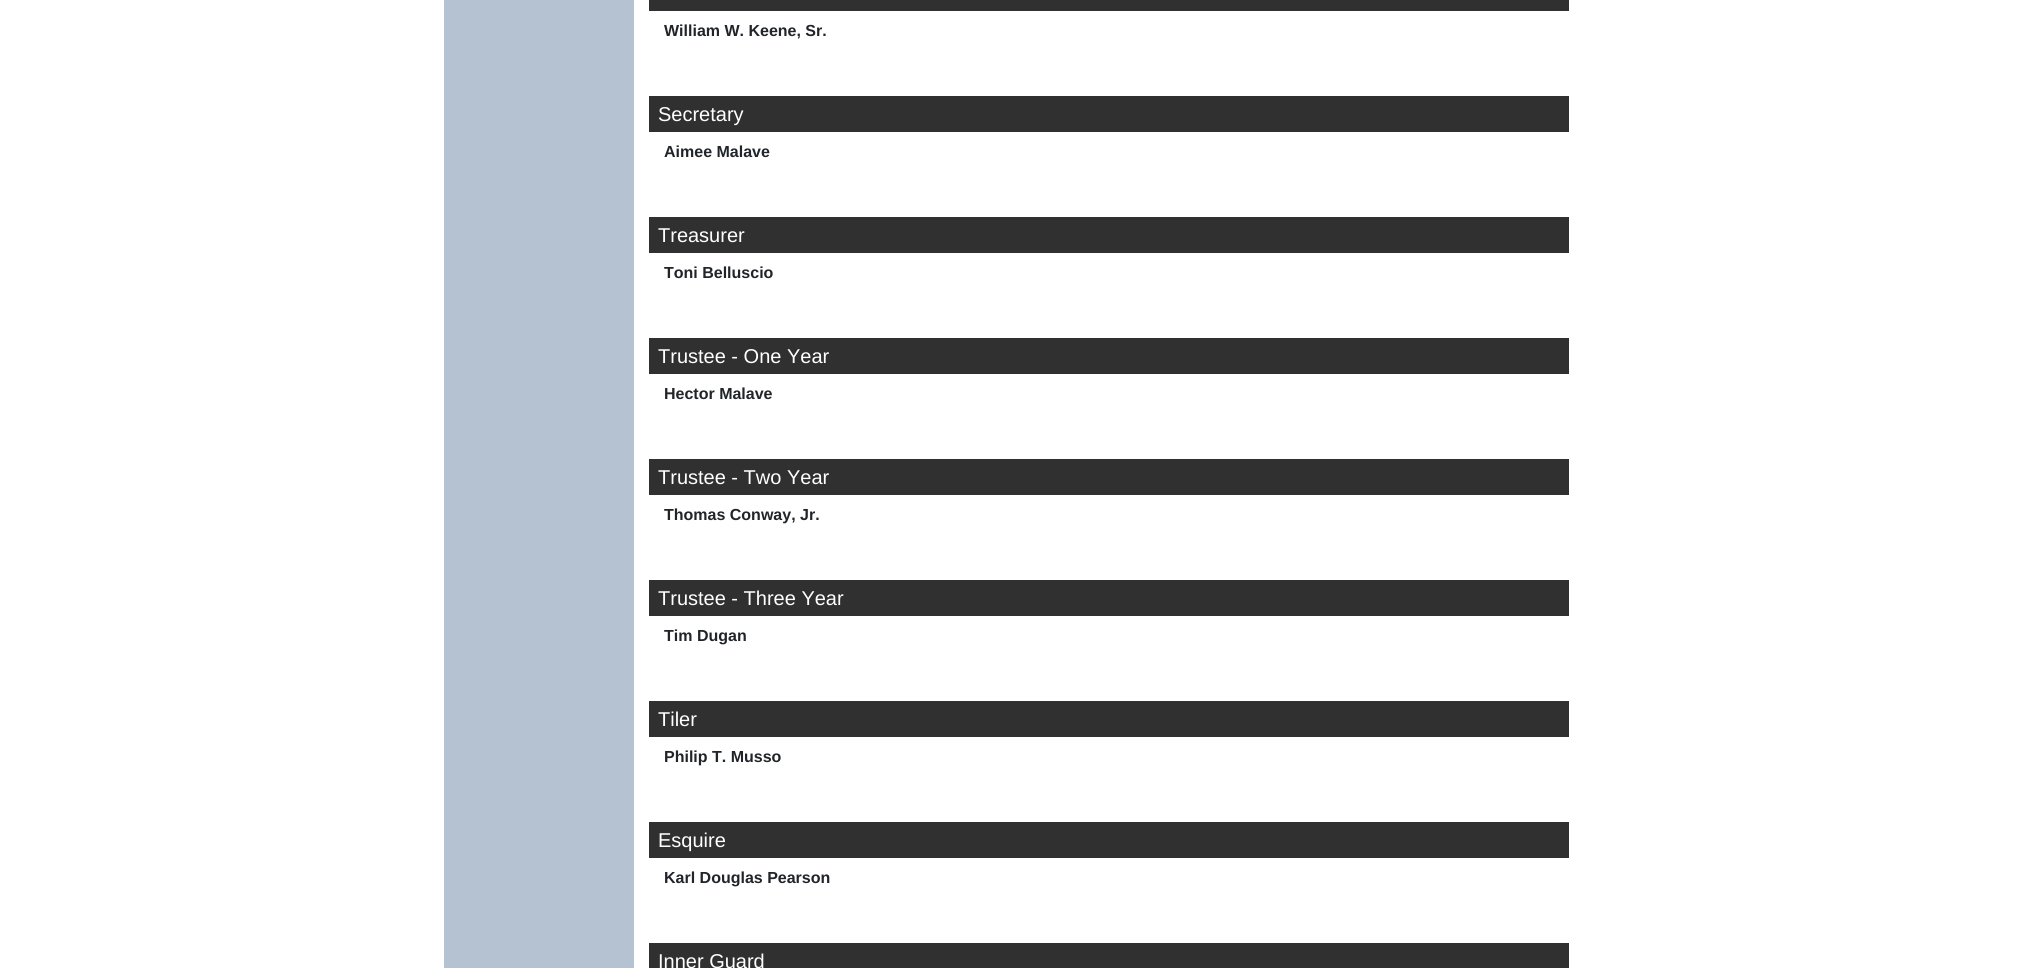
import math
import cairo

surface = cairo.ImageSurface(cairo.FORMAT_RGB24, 2027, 968)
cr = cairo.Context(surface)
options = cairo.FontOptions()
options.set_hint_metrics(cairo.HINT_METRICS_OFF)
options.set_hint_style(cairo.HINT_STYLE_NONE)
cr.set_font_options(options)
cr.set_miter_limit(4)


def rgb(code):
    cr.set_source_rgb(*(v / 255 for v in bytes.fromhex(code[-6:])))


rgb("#ffffff")
cr.paint()
for x, y, w, h, color in [
    (444, 0, 190, 968, "#b4c2d2"),
    (649, 0, 920, 11, "#303030"),
    (649, 96, 920, 36, "#303030"),
    (649, 217, 920, 36, "#303030"),
    (649, 338, 920, 36, "#303030"),
    (649, 459, 920, 36, "#303030"),
    (649, 580, 920, 36, "#303030"),
    (649, 701, 920, 36, "#303030"),
    (649, 822, 920, 36, "#303030"),
    (649, 943, 920, 25, "#303030"),
]:
    rgb(color)
    cr.rectangle(x, y, w, h)
    cr.fill()
cr.select_font_face("Liberation Sans", cairo.FONT_SLANT_NORMAL, cairo.FONT_WEIGHT_BOLD)
cr.set_font_size(16)
rgb("#212529")
cr.move_to(664, 36)
cr.show_text("William W. Keene, Sr.")
cr.select_font_face("Liberation Sans")
cr.set_font_size(20)
rgb("#ffffff")
cr.move_to(658, 121)
cr.show_text("Secretary")
cr.select_font_face("Liberation Sans", cairo.FONT_SLANT_NORMAL, cairo.FONT_WEIGHT_BOLD)
cr.set_font_size(16)
rgb("#212529")
cr.move_to(664, 157)
cr.show_text("Aimee Malave")
cr.select_font_face("Liberation Sans")
cr.set_font_size(20)
rgb("#ffffff")
cr.move_to(658, 242)
cr.show_text("Treasurer")
cr.select_font_face("Liberation Sans", cairo.FONT_SLANT_NORMAL, cairo.FONT_WEIGHT_BOLD)
cr.set_font_size(16)
rgb("#212529")
cr.move_to(664, 278)
cr.show_text("Toni Belluscio")
cr.select_font_face("Liberation Sans")
cr.set_font_size(20)
rgb("#ffffff")
cr.move_to(658, 363)
cr.show_text("Trustee - One Year")
cr.select_font_face("Liberation Sans", cairo.FONT_SLANT_NORMAL, cairo.FONT_WEIGHT_BOLD)
cr.set_font_size(16)
rgb("#212529")
cr.move_to(664, 399)
cr.show_text("Hector Malave")
cr.select_font_face("Liberation Sans")
cr.set_font_size(20)
rgb("#ffffff")
cr.move_to(658, 484)
cr.show_text("Trustee - Two Year")
cr.select_font_face("Liberation Sans", cairo.FONT_SLANT_NORMAL, cairo.FONT_WEIGHT_BOLD)
cr.set_font_size(16)
rgb("#212529")
cr.move_to(664, 520)
cr.show_text("Thomas Conway, Jr.")
cr.select_font_face("Liberation Sans")
cr.set_font_size(20)
rgb("#ffffff")
cr.move_to(658, 605)
cr.show_text("Trustee - Three Year")
cr.select_font_face("Liberation Sans", cairo.FONT_SLANT_NORMAL, cairo.FONT_WEIGHT_BOLD)
cr.set_font_size(16)
rgb("#212529")
cr.move_to(664, 641)
cr.show_text("Tim Dugan")
cr.select_font_face("Liberation Sans")
cr.set_font_size(20)
rgb("#ffffff")
cr.move_to(658, 726)
cr.show_text("Tiler")
cr.select_font_face("Liberation Sans", cairo.FONT_SLANT_NORMAL, cairo.FONT_WEIGHT_BOLD)
cr.set_font_size(16)
rgb("#212529")
cr.move_to(664, 762)
cr.show_text("Philip T. Musso")
cr.select_font_face("Liberation Sans")
cr.set_font_size(20)
rgb("#ffffff")
cr.move_to(658, 847)
cr.show_text("Esquire")
cr.select_font_face("Liberation Sans", cairo.FONT_SLANT_NORMAL, cairo.FONT_WEIGHT_BOLD)
cr.set_font_size(16)
rgb("#212529")
cr.move_to(664, 883)
cr.show_text("Karl Douglas Pearson")
cr.select_font_face("Liberation Sans")
cr.set_font_size(20)
rgb("#ffffff")
cr.move_to(658, 968)
cr.show_text("Inner Guard")
surface.write_to_png("page.png")
